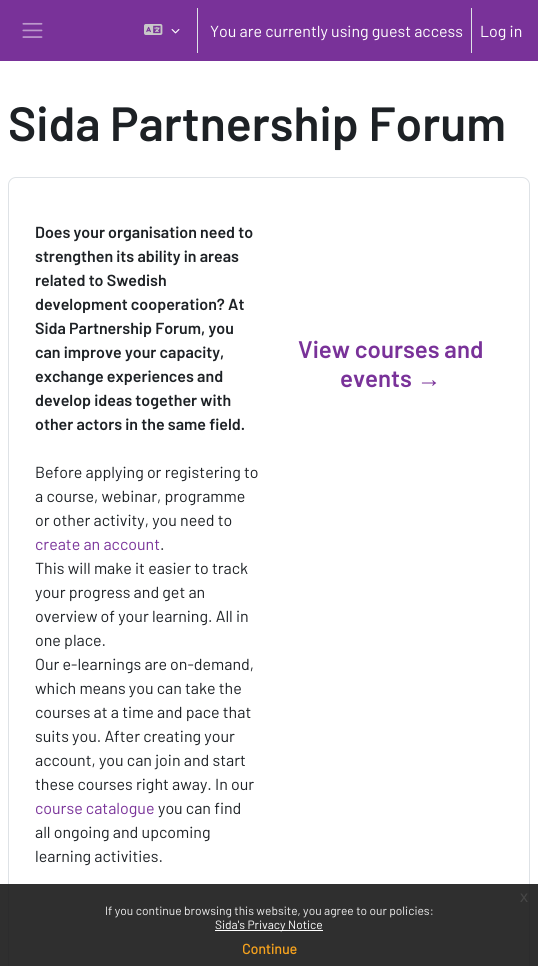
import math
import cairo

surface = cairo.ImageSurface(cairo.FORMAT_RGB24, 538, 966)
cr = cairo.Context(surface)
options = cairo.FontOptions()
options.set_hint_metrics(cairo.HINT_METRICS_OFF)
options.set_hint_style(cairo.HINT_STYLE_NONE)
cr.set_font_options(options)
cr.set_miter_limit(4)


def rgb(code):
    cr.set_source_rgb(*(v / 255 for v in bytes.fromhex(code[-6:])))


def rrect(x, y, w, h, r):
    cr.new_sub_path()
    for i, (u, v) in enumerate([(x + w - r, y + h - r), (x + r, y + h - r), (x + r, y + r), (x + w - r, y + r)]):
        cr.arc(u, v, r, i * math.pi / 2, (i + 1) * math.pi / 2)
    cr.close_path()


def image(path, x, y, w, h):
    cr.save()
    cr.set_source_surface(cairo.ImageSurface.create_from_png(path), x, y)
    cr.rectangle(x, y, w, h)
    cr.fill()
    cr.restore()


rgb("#ffffff")
cr.paint()
rgb("#793299")
cr.rectangle(0, 0, 538, 61)
cr.fill()
image("img/1.png", 22, 22, 21, 16)
image("img/2.png", 144, 24, 19, 11)
image("img/3.png", 171, 29, 9, 5)
rgb("#dee2e6")
cr.rectangle(197, 8, 1, 45)
cr.fill()
cr.rectangle(471, 8, 1, 45)
cr.fill()
rrect(8.5, 177.5, 521, 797, 7.5)
cr.set_line_width(1)
cr.stroke()
cr.set_source_rgba(0.098, 0.098, 0.098, 0.9)
cr.rectangle(0, 884, 538, 82)
cr.fill()
rgb("#ffffff")
cr.rectangle(215, 930, 108, 1)
cr.fill()
cr.select_font_face("Barlow")
cr.set_font_size(16)
cr.move_to(210, 37)
cr.show_text("You are currently using guest access")
cr.move_to(480, 37)
cr.show_text("Log in")
cr.select_font_face("Barlow SemiBold")
cr.set_font_size(48)
rgb("#1d2125")
cr.move_to(8, 141)
cr.show_text("Sida Partnership Forum")
cr.set_font_size(16)
for x, y, s in [
    (35, 238, "Does your organisation need to"),
    (35, 262, "strengthen its ability in areas"),
    (35, 286, "related to Swedish"),
    (35, 310, "development cooperation? At"),
    (35, 334, "Sida Partnership Forum, you"),
    (35, 358, "can improve your capacity,"),
    (35, 382, "exchange experiences and"),
    (35, 406, "develop ideas together with"),
    (35, 430, "other actors in the same field."),
]:
    cr.move_to(x, y)
    cr.show_text(s)
cr.select_font_face("Barlow")
for x, y, s in [
    (35, 478, "Before applying or registering to"),
    (35, 502, "a course, webinar, programme"),
    (35, 526, "or other activity, you need to"),
]:
    cr.move_to(x, y)
    cr.show_text(s)
rgb("#793299")
cr.move_to(35, 550)
cr.show_text("create an account")
rgb("#1d2125")
for x, y, s in [
    (160, 550, "."),
    (35, 574, "This will make it easier to track"),
    (35, 598, "your progress and get an"),
    (35, 622, "overview of your learning. All in"),
    (35, 646, "one place."),
    (35, 670, "Our e-learnings are on-demand,"),
    (35, 694, "which means you can take the"),
    (35, 718, "courses at a time and pace that"),
    (35, 742, "suits you. After creating your"),
    (35, 766, "account, you can join and start"),
    (35, 790, "these courses right away. In our"),
]:
    cr.move_to(x, y)
    cr.show_text(s)
rgb("#793299")
cr.move_to(35, 814)
cr.show_text("course catalogue")
rgb("#1d2125")
for x, y, s in [
    (158, 814, "you can find"),
    (35, 838, "all ongoing and upcoming"),
    (35, 862, "learning activities."),
]:
    cr.move_to(x, y)
    cr.show_text(s)
cr.select_font_face("Barlow SemiBold")
cr.set_font_size(24)
rgb("#793299")
cr.move_to(298, 358)
cr.show_text("View courses and")
cr.move_to(340, 387)
cr.show_text("events")
cr.select_font_face("Liberation Serif", cairo.FONT_SLANT_NORMAL, cairo.FONT_WEIGHT_BOLD)
cr.move_to(417, 387)
cr.show_text("→")
cr.select_font_face("Liberation Sans")
cr.set_font_size(16)
rgb("#474747")
cr.move_to(520, 902)
cr.show_text("x")
cr.select_font_face("Barlow")
cr.set_font_size(12)
rgb("#efefef")
cr.move_to(105, 915)
cr.show_text("If you continue browsing this website, you agree to our policies:")
rgb("#ffffff")
cr.move_to(215, 929)
cr.show_text("Sida's Privacy Notice")
cr.select_font_face("Barlow", cairo.FONT_SLANT_NORMAL, cairo.FONT_WEIGHT_BOLD)
cr.set_font_size(14)
rgb("#f6a21d")
cr.move_to(242, 954)
cr.show_text("Continue")
surface.write_to_png("page.png")
